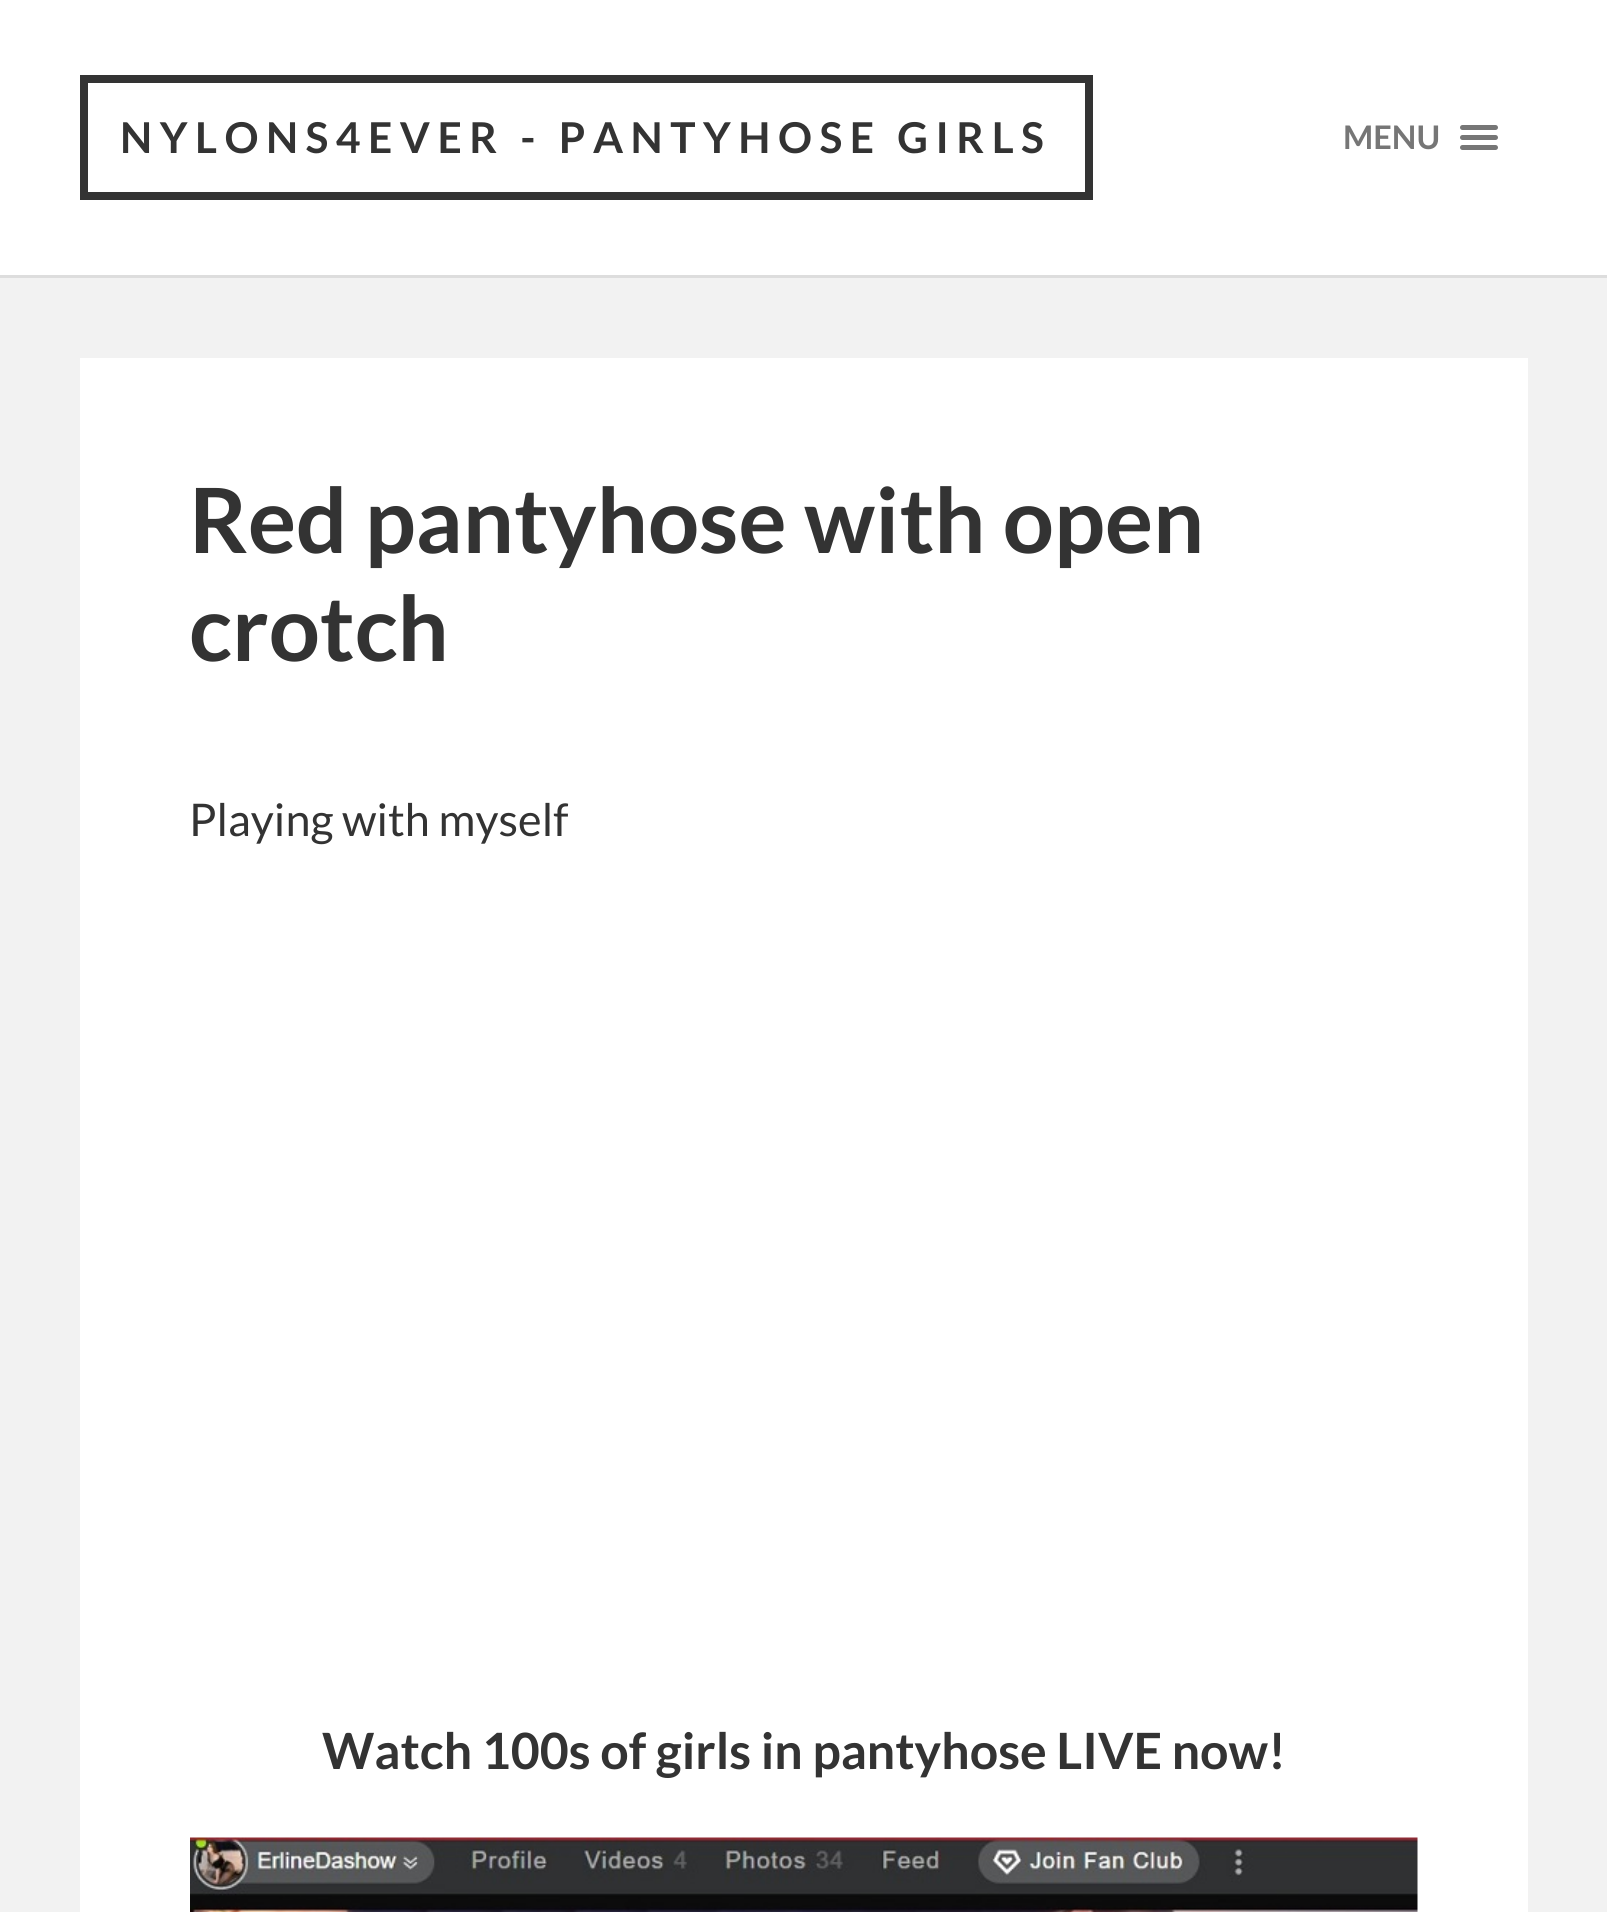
import math
import cairo

surface = cairo.ImageSurface(cairo.FORMAT_RGB24, 1607, 1912)
cr = cairo.Context(surface)
options = cairo.FontOptions()
options.set_hint_metrics(cairo.HINT_METRICS_OFF)
options.set_hint_style(cairo.HINT_STYLE_NONE)
cr.set_font_options(options)
cr.set_miter_limit(4)


def rgb(code):
    cr.set_source_rgb(*(v / 255 for v in bytes.fromhex(code[-6:])))


def tracked(x, y, s, letter, word):
    cr.move_to(x, y)
    for ch in s:
        cr.show_text(ch)
        cr.rel_move_to(letter + word * (ch == ' '), 0)


def rrect(x, y, w, h, r):
    cr.new_sub_path()
    for i, (u, v) in enumerate([(x + w - r, y + h - r), (x + r, y + h - r), (x + r, y + r), (x + w - r, y + r)]):
        cr.arc(u, v, r, i * math.pi / 2, (i + 1) * math.pi / 2)
    cr.close_path()


def image(path, x, y, w, h):
    cr.save()
    cr.set_source_surface(cairo.ImageSurface.create_from_png(path), x, y)
    cr.rectangle(x, y, w, h)
    cr.fill()
    cr.restore()


rgb("#f2f2f2")
cr.paint()
rgb("#ffffff")
cr.rectangle(0, 0, 1607, 275)
cr.fill()
rgb("#dddddd")
cr.rectangle(0, 275, 1607, 3)
cr.fill()
cr.rectangle(84, 79, 1005, 117)
rgb("#333333")
cr.set_line_width(8)
cr.stroke()
rgb("#767676")
rrect(1460, 125, 38, 5, 2.5)
cr.fill()
rrect(1460, 135, 38, 5, 2.5)
cr.fill()
rrect(1460, 145, 38, 5, 2.5)
cr.fill()
rgb("#ffffff")
cr.rectangle(80, 358, 1448, 1554)
cr.fill()
image("img/1.png", 190, 1837, 1228, 75)
cr.select_font_face("Lato", cairo.FONT_SLANT_NORMAL, cairo.FONT_WEIGHT_BOLD)
cr.set_font_size(42.5)
rgb("#333333")
tracked(120, 153, "NYLONS4EVER - PANTYHOSE GIRLS", 7.5, 0)
cr.set_font_size(32.5)
rgb("#767676")
cr.move_to(1343, 149)
cr.show_text("MENU")
cr.set_font_size(90)
rgb("#333333")
cr.move_to(189, 553)
cr.show_text("Red pantyhose with open")
cr.move_to(189, 661)
cr.show_text("crotch")
cr.select_font_face("Lato")
cr.set_font_size(45)
cr.move_to(189, 836)
cr.show_text("Playing with myself")
cr.select_font_face("Lato", cairo.FONT_SLANT_NORMAL, cairo.FONT_WEIGHT_BOLD)
cr.set_font_size(50)
cr.move_to(322, 1769)
cr.show_text("Watch 100s of girls in pantyhose LIVE now!")
surface.write_to_png("page.png")
